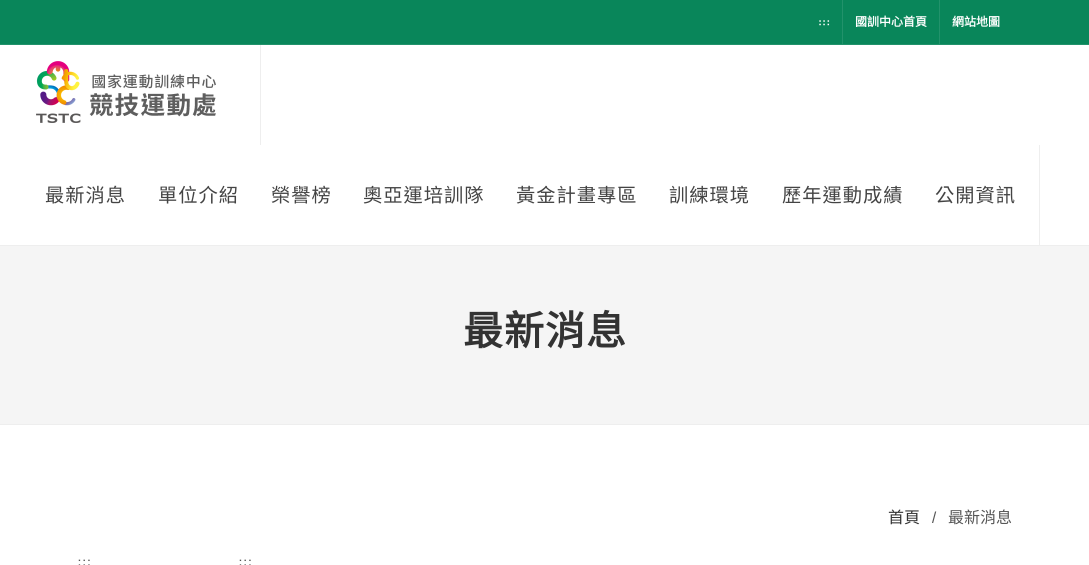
import math
import cairo

surface = cairo.ImageSurface(cairo.FORMAT_RGB24, 1089, 565)
cr = cairo.Context(surface)
options = cairo.FontOptions()
options.set_hint_metrics(cairo.HINT_METRICS_OFF)
options.set_hint_style(cairo.HINT_STYLE_NONE)
cr.set_font_options(options)
cr.set_miter_limit(4)


def rgb(code):
    cr.set_source_rgb(*(v / 255 for v in bytes.fromhex(code[-6:])))


def tracked(x, y, s, letter, word):
    cr.move_to(x, y)
    for ch in s:
        cr.show_text(ch)
        cr.rel_move_to(letter + word * (ch == ' '), 0)


def image(path, x, y, w, h):
    cr.save()
    cr.set_source_surface(cairo.ImageSurface.create_from_png(path), x, y)
    cr.rectangle(x, y, w, h)
    cr.fill()
    cr.restore()


rgb("#ffffff")
cr.paint()
for x, y, w, h, color in [
    (0, 0, 1089, 44, "#09865a"),
    (0, 44, 1089, 1, "#22926b"),
    (842, 0, 1, 44, "#22926b"),
    (939, 0, 1, 44, "#22926b"),
    (0, 245, 1089, 1, "#eeeeee"),
    (260, 45, 1, 100, "#eeeeee"),
]:
    rgb(color)
    cr.rectangle(x, y, w, h)
    cr.fill()
image("img/1.png", 36, 61, 180, 62)
for x, y, w, h, color in [
    (1039, 145, 1, 100, "#eeeeee"),
    (0, 246, 1089, 178, "#f5f5f5"),
    (0, 424, 1089, 1, "#eeeeee"),
]:
    rgb(color)
    cr.rectangle(x, y, w, h)
    cr.fill()
cr.select_font_face("Manrope", cairo.FONT_SLANT_NORMAL, cairo.FONT_WEIGHT_BOLD)
cr.set_font_size(12)
rgb("#ffffff")
cr.move_to(818, 26)
cr.show_text(":::")
cr.select_font_face("Noto Sans CJK TC", cairo.FONT_SLANT_NORMAL, cairo.FONT_WEIGHT_BOLD)
cr.move_to(855, 26)
cr.show_text("國訓中心首頁")
cr.move_to(952, 26)
cr.show_text("網站地圖")
cr.select_font_face("Noto Sans CJK TC")
cr.set_font_size(19.25)
rgb("#444444")
for x, y, s in [
    (45, 202, "最新消息"),
    (158, 202, "單位介紹"),
    (271, 202, "榮譽榜"),
    (363, 202, "奧亞運培訓隊"),
    (516, 202, "黃金計畫專區"),
    (669, 202, "訓練環境"),
    (782, 202, "歷年運動成績"),
    (935, 202, "公開資訊"),
]:
    tracked(x, y, s, 1, 0)
cr.select_font_face("Noto Sans CJK TC", cairo.FONT_SLANT_NORMAL, cairo.FONT_WEIGHT_BOLD)
cr.set_font_size(40)
rgb("#333333")
tracked(463, 345, "最新消息", 1, 0)
cr.select_font_face("Noto Sans CJK TC")
cr.set_font_size(16)
cr.move_to(888, 523)
cr.show_text("首頁")
cr.select_font_face("Manrope")
rgb("#555555")
cr.move_to(931, 523)
cr.show_text("/")
cr.select_font_face("Noto Sans CJK TC")
cr.move_to(948, 523)
cr.show_text("最新消息")
cr.select_font_face("Manrope")
cr.move_to(77, 567)
cr.show_text(":::")
cr.move_to(238, 567)
cr.show_text(":::")
surface.write_to_png("page.png")
